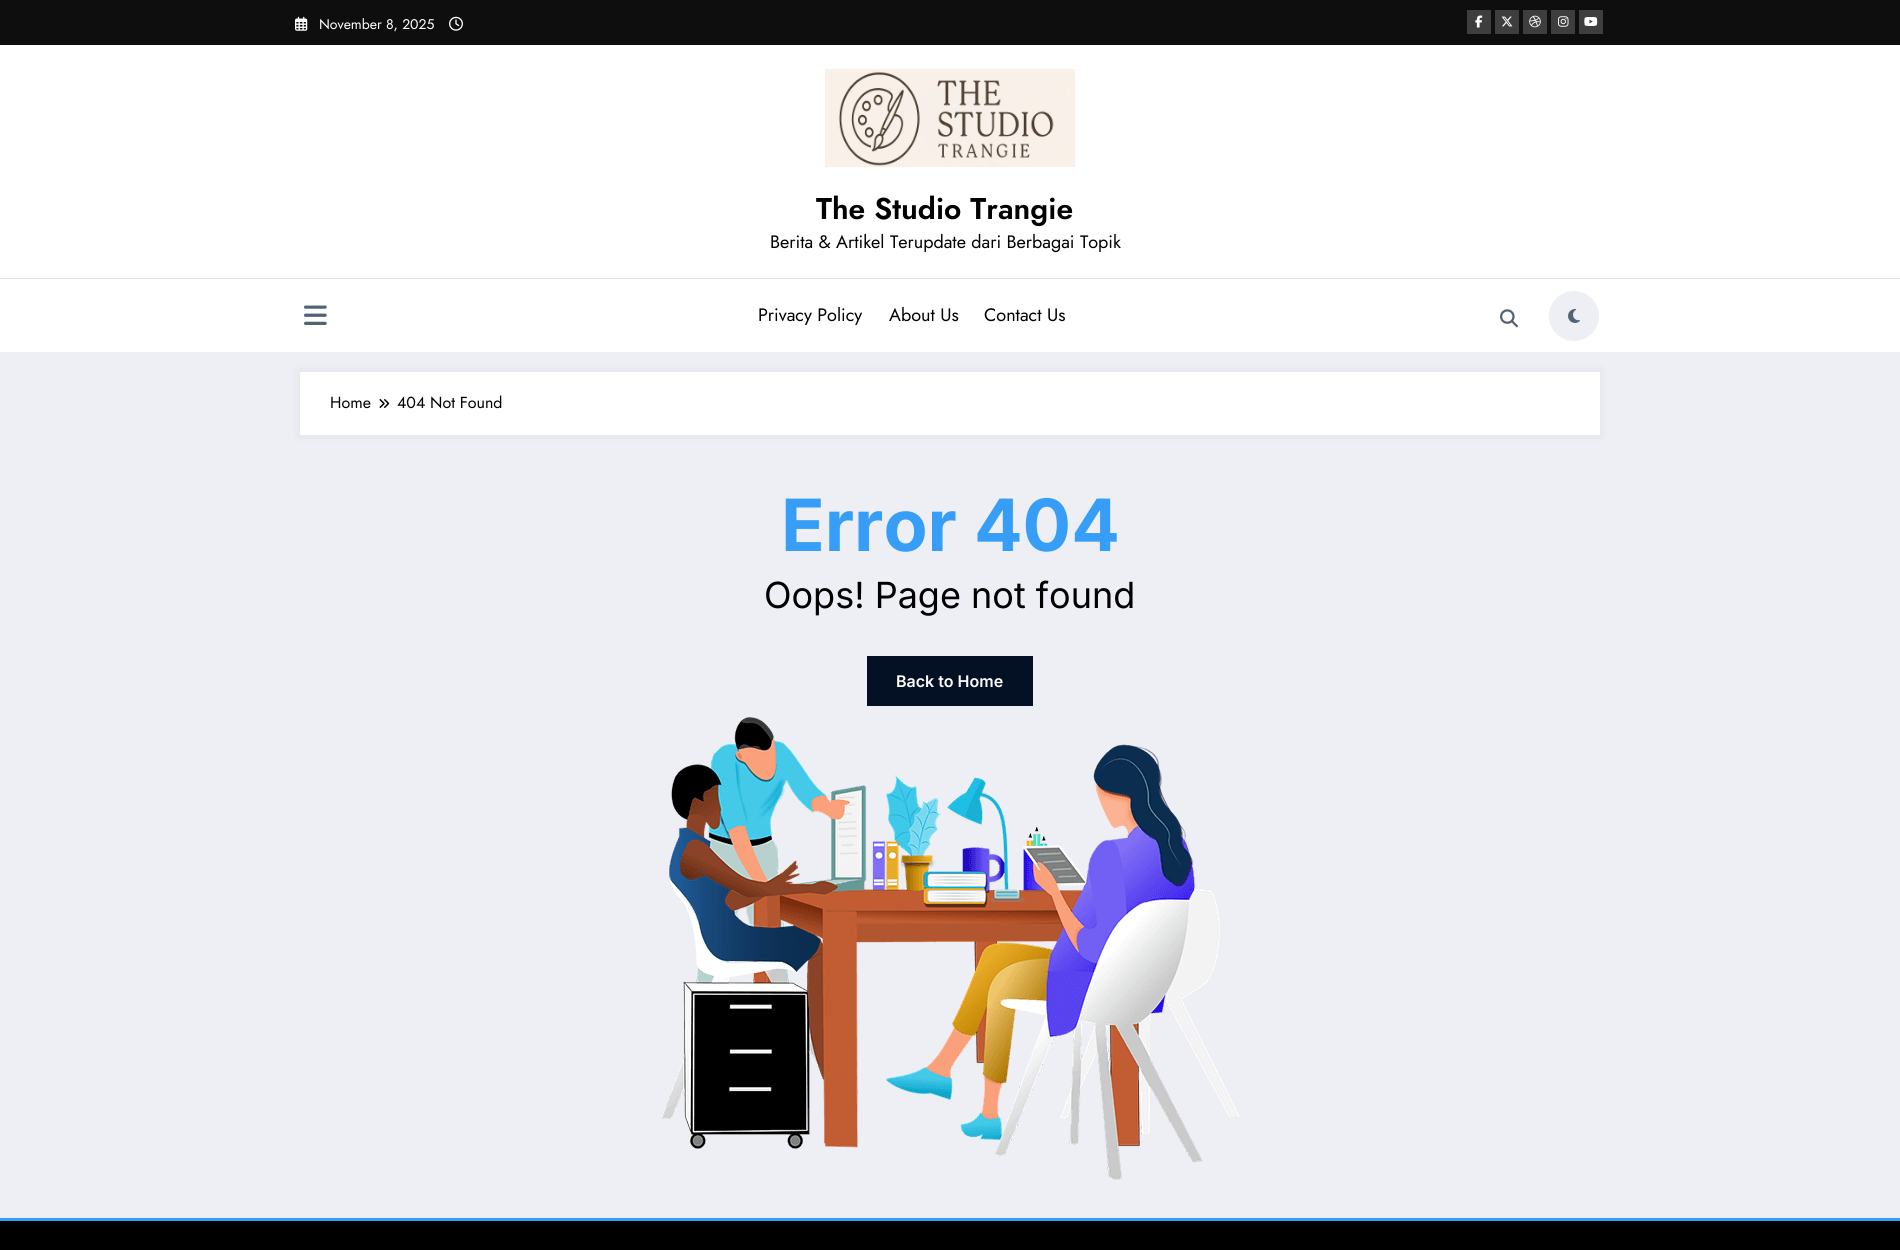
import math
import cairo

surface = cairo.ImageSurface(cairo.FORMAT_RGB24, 1900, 1250)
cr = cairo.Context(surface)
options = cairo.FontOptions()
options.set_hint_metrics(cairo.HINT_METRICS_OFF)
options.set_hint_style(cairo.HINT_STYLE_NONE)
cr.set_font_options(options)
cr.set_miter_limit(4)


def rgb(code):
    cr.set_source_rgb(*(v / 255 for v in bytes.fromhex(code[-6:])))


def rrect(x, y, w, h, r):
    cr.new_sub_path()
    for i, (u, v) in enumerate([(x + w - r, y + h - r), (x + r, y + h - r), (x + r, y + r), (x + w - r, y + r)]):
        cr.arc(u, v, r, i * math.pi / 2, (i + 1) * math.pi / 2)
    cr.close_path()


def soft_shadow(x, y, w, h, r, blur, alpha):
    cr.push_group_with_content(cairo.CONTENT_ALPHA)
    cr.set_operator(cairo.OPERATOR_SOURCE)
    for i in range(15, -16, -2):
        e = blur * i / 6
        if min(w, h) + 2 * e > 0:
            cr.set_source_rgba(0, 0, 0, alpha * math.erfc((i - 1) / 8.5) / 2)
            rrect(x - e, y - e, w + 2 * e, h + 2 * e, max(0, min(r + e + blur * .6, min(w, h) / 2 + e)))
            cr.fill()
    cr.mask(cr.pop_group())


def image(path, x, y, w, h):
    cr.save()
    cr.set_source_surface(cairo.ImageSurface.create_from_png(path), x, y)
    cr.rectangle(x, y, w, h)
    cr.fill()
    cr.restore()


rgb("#eeeef5")
cr.paint()
rgb("#0e0e0e")
cr.rectangle(0, 0, 1900, 45)
cr.fill()
image("img/1.png", 295, 16, 13, 15)
image("img/2.png", 449, 16, 14, 15)
rgb("#3e3e3e")
cr.rectangle(1467, 10, 24, 24)
cr.fill()
image("img/3.png", 1475, 15, 8, 13)
cr.rectangle(1495, 10, 24, 24)
cr.fill()
image("img/4.png", 1501, 16, 12, 11)
cr.rectangle(1523, 10, 24, 24)
cr.fill()
image("img/5.png", 1529, 15, 12, 13)
cr.rectangle(1551, 10, 24, 24)
cr.fill()
image("img/6.png", 1558, 16, 11, 11)
cr.rectangle(1579, 10, 24, 24)
cr.fill()
image("img/7.png", 1584, 17, 14, 9)
rgb("#ffffff")
cr.rectangle(0, 45, 1900, 307)
cr.fill()
image("img/8.png", 825, 69, 250, 98)
rgb("#e1e1e1")
cr.rectangle(0, 278, 1900, 1)
cr.fill()
image("img/9.png", 304, 305, 23, 20)
image("img/10.png", 1500, 309, 18, 19)
rgb("#eeeef5")
cr.arc(1574, 316, 25, 0, 2 * math.pi)
cr.fill()
image("img/11.png", 1568, 309, 12, 14)
rgb("#171723")
soft_shadow(298, 370, 1304, 67, 0, 4, 0.05)
rgb("#ffffff")
cr.rectangle(300, 372, 1300, 63)
cr.fill()
image("img/12.png", 379, 399, 11, 9)
rgb("#041124")
cr.rectangle(867, 656, 166, 50)
cr.fill()
image("img/13.png", 661, 717, 579, 463)
rgb("#369ef6")
cr.rectangle(0, 1218, 1900, 3)
cr.fill()
rgb("#000000")
cr.rectangle(0, 1221, 1900, 29)
cr.fill()
cr.select_font_face("Jost")
cr.set_font_size(14)
rgb("#ffffff")
cr.move_to(319, 29)
cr.show_text("November 8, 2025")
cr.select_font_face("Jost SemiBold")
cr.set_font_size(30)
rgb("#000000")
cr.move_to(816, 219)
cr.show_text("The Studio Trangie")
cr.select_font_face("Jost")
cr.set_font_size(18)
for x, y, s in [
    (770, 248, "Berita & Artikel Terupdate dari Berbagai Topik"),
    (758, 321, "Privacy Policy"),
    (889, 321, "About Us"),
    (984, 321, "Contact Us"),
]:
    cr.move_to(x, y)
    cr.show_text(s)
cr.set_font_size(16)
cr.move_to(330, 408)
cr.show_text("Home")
cr.move_to(397, 408)
cr.show_text("404 Not Found")
cr.select_font_face("Inter", cairo.FONT_SLANT_NORMAL, cairo.FONT_WEIGHT_BOLD)
cr.set_font_size(72)
rgb("#369ef6")
cr.move_to(781, 551)
cr.show_text("Error 404")
cr.select_font_face("Inter")
cr.set_font_size(36)
rgb("#000000")
cr.move_to(764, 608)
cr.show_text("Oops! Page not found")
cr.select_font_face("Inter SemiBold")
cr.set_font_size(16)
rgb("#ffffff")
cr.move_to(896, 687)
cr.show_text("Back to Home")
surface.write_to_png("page.png")
